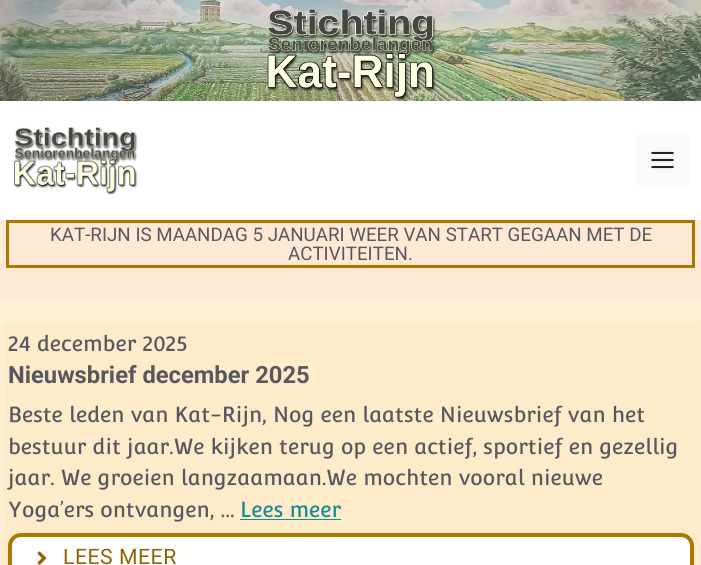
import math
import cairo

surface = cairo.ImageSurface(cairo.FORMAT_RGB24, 701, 565)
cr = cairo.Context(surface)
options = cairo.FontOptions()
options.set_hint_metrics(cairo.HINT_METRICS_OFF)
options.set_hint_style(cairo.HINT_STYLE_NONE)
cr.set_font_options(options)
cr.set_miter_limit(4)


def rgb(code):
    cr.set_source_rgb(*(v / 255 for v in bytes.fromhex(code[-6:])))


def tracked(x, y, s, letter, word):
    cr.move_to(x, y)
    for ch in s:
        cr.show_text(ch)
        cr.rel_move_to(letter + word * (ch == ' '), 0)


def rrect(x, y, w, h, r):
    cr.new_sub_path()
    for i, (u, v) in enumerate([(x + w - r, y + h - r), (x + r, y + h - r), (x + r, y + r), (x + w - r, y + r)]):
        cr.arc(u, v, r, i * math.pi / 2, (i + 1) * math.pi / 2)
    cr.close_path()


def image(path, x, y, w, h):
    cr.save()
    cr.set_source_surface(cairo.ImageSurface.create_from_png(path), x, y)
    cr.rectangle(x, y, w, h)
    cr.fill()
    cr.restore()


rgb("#ffe9d4")
cr.paint()
image("img/1.png", 0, 0, 701, 101)
image("img/2.png", 267, 8, 169, 93)
rgb("#ffffff")
cr.rectangle(0, 101, 701, 119)
cr.fill()
image("img/3.png", 14, 127, 124, 68)
rgb("#fafafa")
cr.rectangle(636, 135, 53, 50)
cr.fill()
image("img/4.png", 651, 151, 23, 18)
cr.rectangle(7.5, 221.5, 686, 45)
rgb("#ab7800")
cr.set_line_width(3)
cr.stroke()
for x, y, w, h, color in [
    (0, 299, 701, 266, "#fff0d3"),
    (3, 324, 696, 241, "#fdebc9"),
    (240, 519, 101, 1, "#178994"),
]:
    rgb(color)
    cr.rectangle(x, y, w, h)
    cr.fill()
rgb("#ffffff")
rrect(10, 535, 682, 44, 11)
cr.fill_preserve()
rgb("#ab7800")
cr.set_line_width(4)
cr.stroke()
image("img/5.png", 37, 551, 10, 14)
cr.select_font_face("Roboto")
cr.set_font_size(18.75)
rgb("#575760")
cr.move_to(50, 241)
cr.show_text("KAT-RIJN IS MAANDAG 5 JANUARI WEER VAN START GEGAAN MET DE")
cr.move_to(288, 260)
cr.show_text("ACTIVITEITEN.")
cr.select_font_face("Convergence")
cr.set_font_size(21.25)
cr.move_to(8, 351)
cr.show_text("24 december 2025")
cr.select_font_face("Roboto", cairo.FONT_SLANT_NORMAL, cairo.FONT_WEIGHT_BOLD)
cr.set_font_size(23.75)
cr.move_to(8, 383)
cr.show_text("Nieuwsbrief december 2025")
cr.select_font_face("Convergence")
cr.set_font_size(21.25)
for x, y, s in [
    (8, 422, "Beste leden van Kat-Rijn, Nog een laatste Nieuwsbrief van het"),
    (8, 454, "bestuur dit jaar.We kijken terug op een actief, sportief en gezellig"),
    (8, 485, "jaar. We groeien langzaamaan.We mochten vooral nieuwe"),
    (8, 517, "Yoga’ers ontvangen, ..."),
]:
    cr.move_to(x, y)
    cr.show_text(s)
rgb("#178994")
cr.move_to(240, 517)
cr.show_text("Lees meer")
cr.select_font_face("Roboto")
rgb("#906500")
tracked(63, 564, "LEES MEER", 0.5, 0)
surface.write_to_png("page.png")
